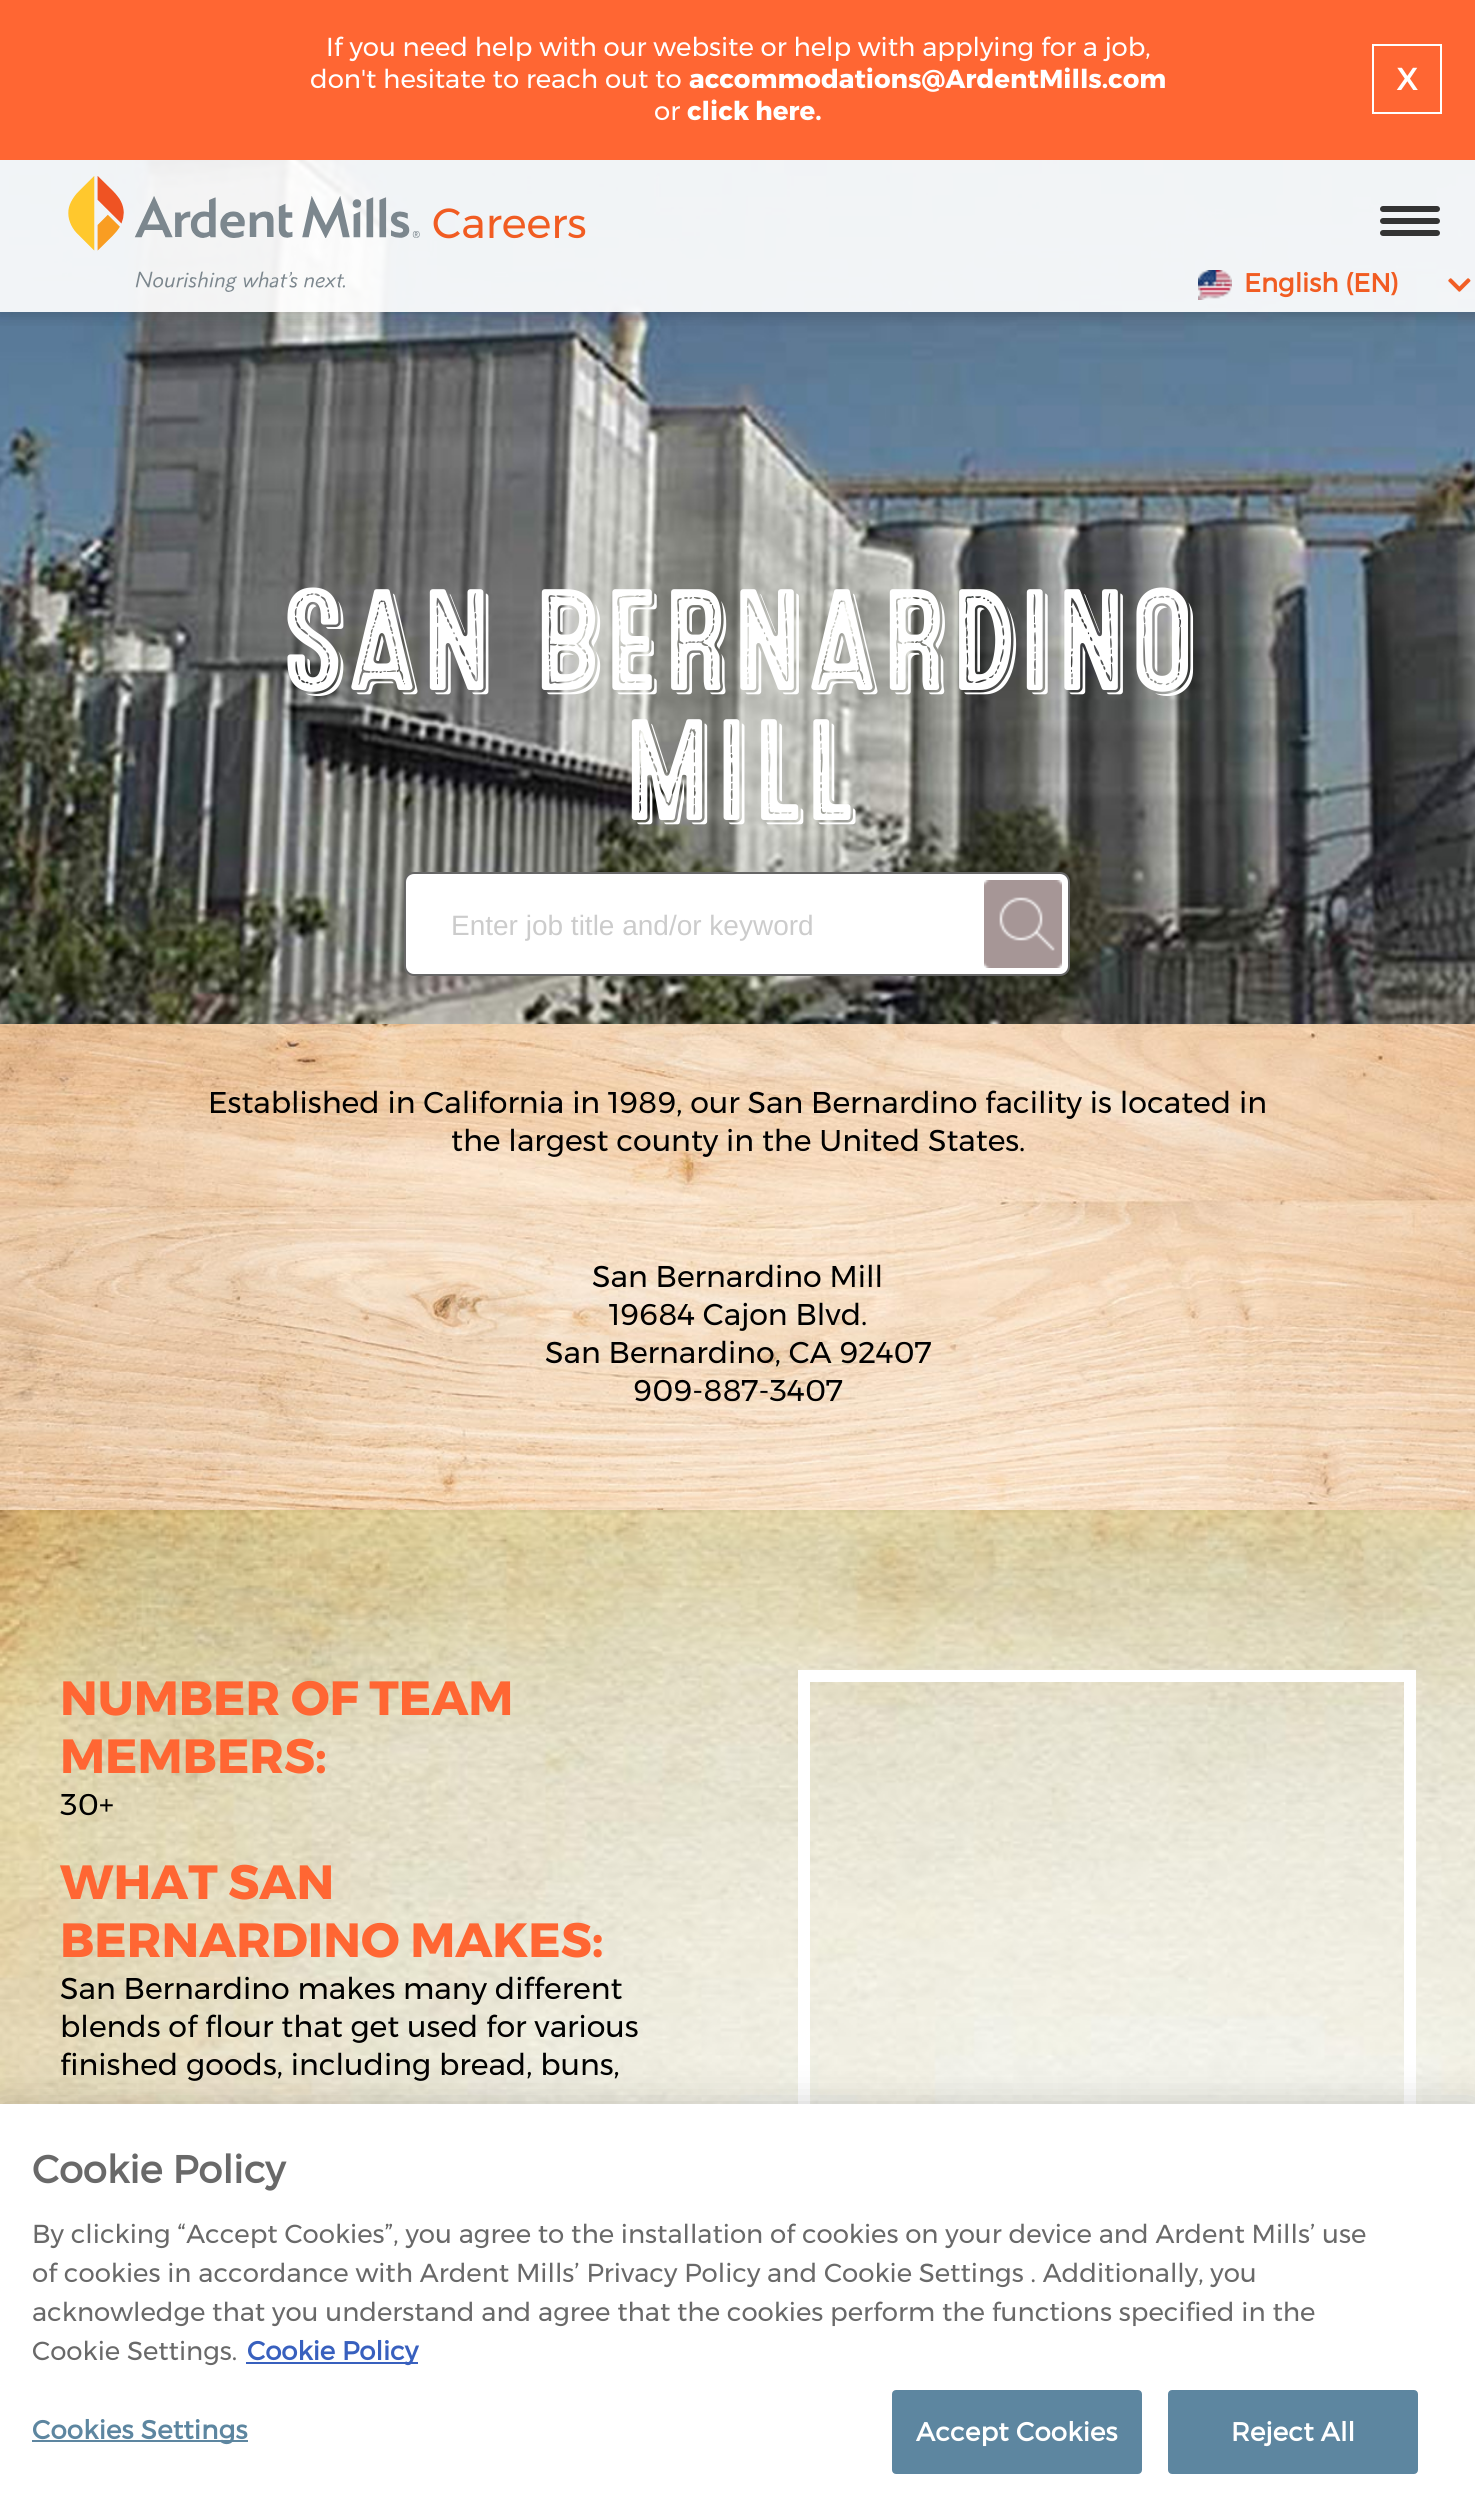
import math
import cairo

surface = cairo.ImageSurface(cairo.FORMAT_RGB24, 1475, 2513)
cr = cairo.Context(surface)
options = cairo.FontOptions()
options.set_hint_metrics(cairo.HINT_METRICS_OFF)
options.set_hint_style(cairo.HINT_STYLE_NONE)
cr.set_font_options(options)
cr.set_miter_limit(4)


def rgb(code):
    cr.set_source_rgb(*(v / 255 for v in bytes.fromhex(code[-6:])))


def tracked(x, y, s, letter, word):
    cr.move_to(x, y)
    for ch in s:
        cr.show_text(ch)
        cr.rel_move_to(letter + word * (ch == ' '), 0)


def rrect(x, y, w, h, r):
    cr.new_sub_path()
    for i, (u, v) in enumerate([(x + w - r, y + h - r), (x + r, y + h - r), (x + r, y + r), (x + w - r, y + r)]):
        cr.arc(u, v, r, i * math.pi / 2, (i + 1) * math.pi / 2)
    cr.close_path()


def soft_shadow(x, y, w, h, r, blur, alpha):
    cr.push_group_with_content(cairo.CONTENT_ALPHA)
    cr.set_operator(cairo.OPERATOR_SOURCE)
    for i in range(15, -16, -2):
        e = blur * i / 6
        if min(w, h) + 2 * e > 0:
            cr.set_source_rgba(0, 0, 0, alpha * math.erfc((i - 1) / 8.5) / 2)
            rrect(x - e, y - e, w + 2 * e, h + 2 * e, max(0, min(r + e + blur * .6, min(w, h) / 2 + e)))
            cr.fill()
    cr.mask(cr.pop_group())


def image(path, x, y, w, h):
    cr.save()
    cr.set_source_surface(cairo.ImageSurface.create_from_png(path), x, y)
    cr.rectangle(x, y, w, h)
    cr.fill()
    cr.restore()


rgb("#ffffff")
cr.paint()
image("img/4.png", 0, 160, 1475, 864)
cr.save()
cr.rectangle(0, 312, 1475, 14)
cr.clip()
rgb("#000000")
soft_shadow(-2, 0, 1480, 316, 0, 8, 0.2)
cr.restore()
rgb("#ff6633")
cr.rectangle(0, 0, 1475, 160)
cr.fill()
cr.rectangle(1373, 45, 68, 68)
rgb("#ffffff")
cr.stroke()
cr.set_source_rgba(1, 1, 1, 0.92)
cr.rectangle(0, 160, 1475, 152)
cr.fill()
image("img/1.png", 68, 176, 352, 116)
rgb("#333333")
rrect(1380, 206, 60, 6, 3)
cr.fill()
rrect(1380, 218, 60, 6, 3)
cr.fill()
rrect(1380, 230, 60, 6, 3)
cr.fill()
image("img/2.png", 1198, 270, 34, 30)
image("img/3.png", 1448, 278, 23, 14)
rgb("#ffffff")
rrect(405, 873, 664, 102, 9)
cr.fill_preserve()
rgb("#666666")
cr.stroke()
image("img/5.png", 984, 880, 78, 88)
image("img/6.png", 0, 1024, 1475, 486)
image("img/7.png", 0, 1510, 1475, 594)
cr.rectangle(804, 1676, 606, 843)
rgb("#ffffff")
cr.set_line_width(12)
cr.stroke()
rgb("#000000")
soft_shadow(0, 2104, 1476, 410, 0, 18, 0.2)
for x, y, w, h, color in [
    (0, 2104, 1475, 409, "#ffffff"),
    (246, 2362, 172, 2, "#3860be"),
    (32, 2440, 216, 2, "#5d86a0"),
]:
    rgb(color)
    cr.rectangle(x, y, w, h)
    cr.fill()
rrect(893, 2391, 248, 82, 3)
cr.fill_preserve()
cr.set_line_width(2)
cr.stroke()
rrect(1169, 2391, 248, 82, 3)
cr.fill_preserve()
cr.stroke()
cr.select_font_face("Montserrat")
cr.set_font_size(26)
rgb("#ffffff")
cr.move_to(326, 56)
cr.show_text("If you need help with our website or help with applying for a job,")
cr.move_to(310, 88)
cr.show_text("don't hesitate to reach out to")
cr.select_font_face("Montserrat", cairo.FONT_SLANT_NORMAL, cairo.FONT_WEIGHT_BOLD)
cr.move_to(689, 88)
cr.show_text("accommodations@ArdentMills.com")
cr.select_font_face("Montserrat")
cr.move_to(654, 120)
cr.show_text("or")
cr.select_font_face("Montserrat", cairo.FONT_SLANT_NORMAL, cairo.FONT_WEIGHT_BOLD)
cr.move_to(687, 120)
cr.show_text("click here.")
cr.select_font_face("Montserrat")
cr.set_font_size(42)
cr.move_to(1396, 90)
cr.show_text("x")
rgb("#f15c22")
cr.move_to(432, 238)
cr.show_text("Careers")
cr.select_font_face("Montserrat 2", cairo.FONT_SLANT_NORMAL, cairo.FONT_WEIGHT_BOLD)
cr.set_font_size(26)
cr.move_to(1244, 292)
cr.show_text("English (EN)")
cr.select_font_face("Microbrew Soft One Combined")
cr.set_font_size(144)
rgb("#ffffff")
cr.move_to(281, 690)
cr.show_text("SAN BERNARDINO")
cr.move_to(621, 820)
cr.show_text("MILL")
cr.select_font_face("Liberation Sans")
cr.set_font_size(28)
rgb("#cccccc")
cr.move_to(451, 935)
cr.show_text("Enter job title and/or keyword")
cr.select_font_face("Montserrat")
cr.set_font_size(30)
rgb("#000000")
for x, y, s in [
    (208, 1113, "Established in California in 1989, our San Bernardino facility is located in"),
    (451, 1151, "the largest county in the United States."),
    (592, 1287, "San Bernardino Mill"),
    (609, 1325, "19684 Cajon Blvd."),
    (545, 1363, "San Bernardino, CA 92407"),
    (633, 1401, "909-887-3407"),
]:
    cr.move_to(x, y)
    cr.show_text(s)
cr.select_font_face("Montserrat", cairo.FONT_SLANT_NORMAL, cairo.FONT_WEIGHT_BOLD)
cr.set_font_size(48)
rgb("#ff6633")
cr.move_to(60, 1715)
cr.show_text("NUMBER OF TEAM")
cr.move_to(60, 1773)
cr.show_text("MEMBERS:")
cr.select_font_face("Montserrat")
cr.set_font_size(30)
rgb("#000000")
cr.move_to(60, 1815)
cr.show_text("30+")
cr.select_font_face("Montserrat", cairo.FONT_SLANT_NORMAL, cairo.FONT_WEIGHT_BOLD)
cr.set_font_size(48)
rgb("#ff6633")
cr.move_to(60, 1899)
cr.show_text("WHAT SAN")
cr.move_to(60, 1957)
cr.show_text("BERNARDINO MAKES:")
cr.select_font_face("Montserrat")
cr.set_font_size(30)
rgb("#000000")
for x, y, s in [
    (60, 1999, "San Bernardino makes many different"),
    (60, 2037, "blends of flour that get used for various"),
    (60, 2075, "finished goods, including bread, buns,"),
]:
    cr.move_to(x, y)
    cr.show_text(s)
cr.select_font_face("Montserrat 2", cairo.FONT_SLANT_NORMAL, cairo.FONT_WEIGHT_BOLD)
cr.set_font_size(38.5)
rgb("#696969")
cr.move_to(32, 2183)
cr.show_text("Cookie Policy")
cr.select_font_face("Montserrat")
cr.set_font_size(26.02)
for x, y, s in [
    (32, 2243, "By clicking “Accept Cookies”, you agree to the installation of cookies on your device and Ardent Mills’ use"),
    (32, 2282, "of cookies in accordance with Ardent Mills’ Privacy Policy and Cookie Settings . Additionally, you"),
    (32, 2321, "acknowledge that you understand and agree that the cookies perform the functions specified in the"),
    (32, 2360, "Cookie Settings."),
]:
    cr.move_to(x, y)
    cr.show_text(s)
cr.select_font_face("Montserrat 2", cairo.FONT_SLANT_NORMAL, cairo.FONT_WEIGHT_BOLD)
rgb("#3860be")
cr.move_to(247, 2360)
cr.show_text("Cookie Policy")
rgb("#5d86a0")
tracked(32, 2439, "Cookies Settings", 0.25, 0)
rgb("#ffffff")
tracked(916, 2441, "Accept Cookies", 0.25, 0)
tracked(1231, 2441, "Reject All", 0.25, 0)
surface.write_to_png("page.png")
